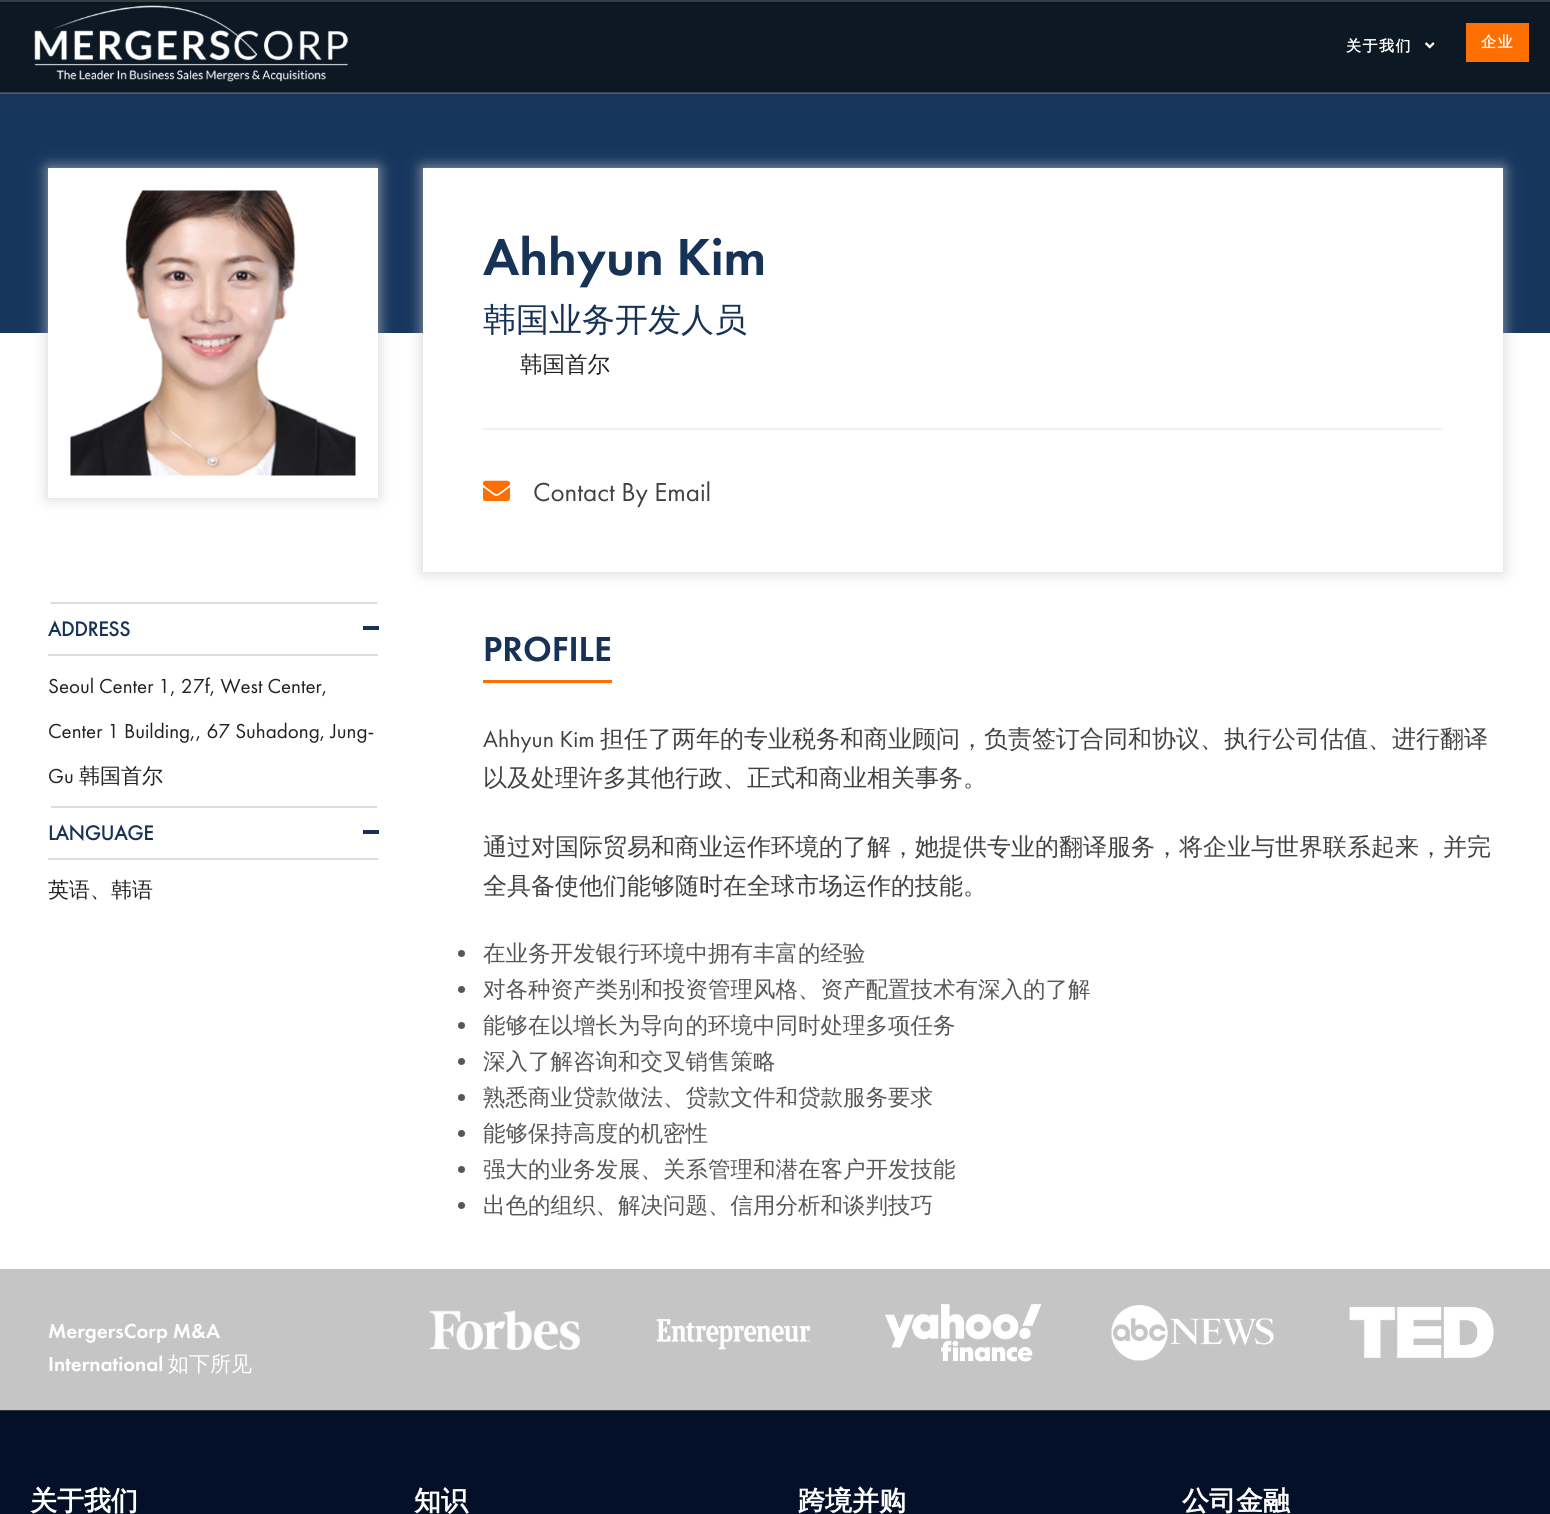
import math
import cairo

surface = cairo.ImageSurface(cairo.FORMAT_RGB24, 1550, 1514)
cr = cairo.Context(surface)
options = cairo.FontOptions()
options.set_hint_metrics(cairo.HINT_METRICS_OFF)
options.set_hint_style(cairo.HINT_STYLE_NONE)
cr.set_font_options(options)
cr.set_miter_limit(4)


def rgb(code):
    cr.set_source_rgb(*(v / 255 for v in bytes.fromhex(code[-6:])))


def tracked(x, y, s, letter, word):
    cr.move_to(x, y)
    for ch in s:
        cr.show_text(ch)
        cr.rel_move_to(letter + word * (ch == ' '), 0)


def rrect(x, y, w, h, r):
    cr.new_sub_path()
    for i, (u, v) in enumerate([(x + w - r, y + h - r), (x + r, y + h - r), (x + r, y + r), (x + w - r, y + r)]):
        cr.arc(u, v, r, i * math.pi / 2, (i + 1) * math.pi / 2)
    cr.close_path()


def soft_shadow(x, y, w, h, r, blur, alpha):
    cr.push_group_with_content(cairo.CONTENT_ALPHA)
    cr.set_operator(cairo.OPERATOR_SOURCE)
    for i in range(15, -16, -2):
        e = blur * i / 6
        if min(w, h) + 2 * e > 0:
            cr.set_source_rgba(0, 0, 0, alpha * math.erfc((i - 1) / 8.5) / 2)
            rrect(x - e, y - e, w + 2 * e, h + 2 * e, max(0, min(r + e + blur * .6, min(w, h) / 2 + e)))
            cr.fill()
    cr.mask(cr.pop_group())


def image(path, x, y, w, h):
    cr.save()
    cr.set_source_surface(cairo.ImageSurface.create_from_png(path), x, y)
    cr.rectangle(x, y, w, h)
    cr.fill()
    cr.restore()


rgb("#ffffff")
cr.paint()
rgb("#0c1824")
cr.rectangle(0, 2, 1550, 90)
cr.fill()
rgb("#3d4650")
cr.rectangle(0, 0, 1550, 2)
cr.fill()
gradient = cairo.LinearGradient(776, -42, 776, 4.5)
gradient.add_color_stop_rgba(0, 0, 0, 0, 0.8)
gradient.add_color_stop_rgba(1, 0, 0, 0, 0.1)
cr.set_source(gradient)
cr.rectangle(0, 0, 1550, 5)
cr.fill()
rgb("#3d4650")
cr.rectangle(0, 92, 1550, 1)
cr.fill()
image("img/1.png", 34, 5, 314, 77)
image("img/2.png", 1425, 42, 10, 7)
for x, y, w, h, color in [
    (1466, 23, 63, 39, "#ff6e00"),
    (0, 94, 1550, 239, "#16365d"),
    (0, 93, 1550, 1, "#455e7d"),
]:
    rgb(color)
    cr.rectangle(x, y, w, h)
    cr.fill()
rgb("#c8c8c8")
soft_shadow(48, 168, 330, 330, 0, 7.5, 0.8)
cr.rectangle(59.5, 179.5, 307, 307)
rgb("#ffffff")
cr.set_line_width(23)
cr.stroke()
image("img/3.png", 70, 190, 286, 286)
rgb("#c8c8c8")
soft_shadow(423, 168, 1080, 404, 0, 7.5, 0.8)
rgb("#ffffff")
cr.rectangle(423, 168, 1080, 404)
cr.fill()
rgb("#f1f1f2")
cr.rectangle(483, 428, 960, 2)
cr.fill()
image("img/4.png", 483, 480, 27, 21)
for x, y, w, h, color in [
    (51, 602, 326, 2, "#dddddd"),
    (48, 654, 330, 2, "#dddddd"),
    (363, 626, 16, 4, "#163257"),
    (51, 806, 326, 2, "#dddddd"),
    (48, 858, 330, 2, "#dddddd"),
    (363, 830, 16, 4, "#163257"),
    (483, 680, 129, 3, "#ff6e00"),
]:
    rgb(color)
    cr.rectangle(x, y, w, h)
    cr.fill()
rgb("#575756")
cr.arc(461.5, 953.5, 3.5, 0, 2 * math.pi)
cr.fill()
cr.arc(461.5, 989.5, 3.5, 0, 2 * math.pi)
cr.fill()
cr.arc(461.5, 1025.5, 3.5, 0, 2 * math.pi)
cr.fill()
cr.arc(461.5, 1061.5, 3.5, 0, 2 * math.pi)
cr.fill()
cr.arc(461.5, 1097.5, 3.5, 0, 2 * math.pi)
cr.fill()
cr.arc(461.5, 1133.5, 3.5, 0, 2 * math.pi)
cr.fill()
cr.arc(461.5, 1169.5, 3.5, 0, 2 * math.pi)
cr.fill()
cr.arc(461.5, 1205.5, 3.5, 0, 2 * math.pi)
cr.fill()
rgb("#c5c5c5")
cr.rectangle(0, 1269, 1550, 141)
cr.fill()
image("img/5.png", 429, 1310, 151, 40)
image("img/6.png", 656, 1319, 155, 31)
image("img/7.png", 885, 1304, 157, 58)
image("img/8.png", 1111, 1305, 163, 56)
image("img/9.png", 1349, 1306, 145, 52)
image("img/10.png", 0, 1410, 1550, 104)
cr.select_font_face("WenQuanYi Zen Hei", cairo.FONT_SLANT_NORMAL, cairo.FONT_WEIGHT_BOLD)
cr.set_font_size(15)
rgb("#ffffff")
tracked(1346, 51, "关于我们", 1.5, 0)
tracked(1481, 47, "企业", 1.5, 0)
cr.select_font_face("Futura PT Medium")
cr.set_font_size(54)
rgb("#163257")
cr.move_to(483, 275)
cr.show_text("Ahhyun Kim")
cr.select_font_face("WenQuanYi Zen Hei Medium")
cr.set_font_size(33)
cr.move_to(483, 331)
cr.show_text("韩国业务开发人员")
cr.set_font_size(22.5)
rgb("#222222")
cr.move_to(520, 372)
cr.show_text("韩国首尔")
cr.select_font_face("Futura PT")
cr.set_font_size(27)
rgb("#424242")
cr.move_to(533, 501)
cr.show_text("Contact By Email")
cr.select_font_face("Futura PT", cairo.FONT_SLANT_NORMAL, cairo.FONT_WEIGHT_BOLD)
cr.set_font_size(21)
rgb("#163257")
cr.move_to(48, 636)
cr.show_text("ADDRESS")
cr.select_font_face("Futura PT")
rgb("#222222")
for x, y, s in [
    (48, 693, "Seoul Center 1, 27f, West Center,"),
    (48, 738, "Center 1 Building,, 67 Suhadong, Jung-"),
    (48, 783, "Gu"),
]:
    cr.move_to(x, y)
    cr.show_text(s)
cr.select_font_face("WenQuanYi Zen Hei Medium")
cr.move_to(79, 783)
cr.show_text("韩国首尔")
cr.select_font_face("Futura PT", cairo.FONT_SLANT_NORMAL, cairo.FONT_WEIGHT_BOLD)
rgb("#163257")
cr.move_to(48, 840)
cr.show_text("LANGUAGE")
cr.select_font_face("WenQuanYi Zen Hei Medium")
rgb("#222222")
cr.move_to(48, 897)
cr.show_text("英语、韩语")
cr.select_font_face("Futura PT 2 Medium")
cr.set_font_size(36)
rgb("#163257")
cr.move_to(483, 661)
cr.show_text("PROFILE")
cr.select_font_face("Futura PT")
cr.set_font_size(24)
rgb("#424242")
cr.move_to(483, 747)
cr.show_text("Ahhyun Kim")
cr.select_font_face("WenQuanYi Zen Hei Medium")
for x, y, s in [
    (600, 747, "担任了两年的专业税务和商业顾问，负责签订合同和协议、执行公司估值、进行翻译"),
    (483, 786, "以及处理许多其他行政、正式和商业相关事务。"),
    (483, 855, "通过对国际贸易和商业运作环境的了解，她提供专业的翻译服务，将企业与世界联系起来，并完"),
    (483, 894, "全具备使他们能够随时在全球市场运作的技能。"),
]:
    cr.move_to(x, y)
    cr.show_text(s)
cr.set_font_size(22.5)
rgb("#575756")
for x, y, s in [
    (483, 961, "在业务开发银行环境中拥有丰富的经验"),
    (483, 997, "对各种资产类别和投资管理风格、资产配置技术有深入的了解"),
    (483, 1033, "能够在以增长为导向的环境中同时处理多项任务"),
    (483, 1069, "深入了解咨询和交叉销售策略"),
    (483, 1105, "熟悉商业贷款做法、贷款文件和贷款服务要求"),
    (483, 1141, "能够保持高度的机密性"),
    (483, 1177, "强大的业务发展、关系管理和潜在客户开发技能"),
    (483, 1213, "出色的组织、解决问题、信用分析和谈判技巧"),
]:
    cr.move_to(x, y)
    cr.show_text(s)
cr.select_font_face("Futura PT 2 Medium")
cr.set_font_size(21)
rgb("#ffffff")
cr.move_to(48, 1338)
cr.show_text("MergersCorp M&A")
cr.move_to(48, 1371)
cr.show_text("International")
cr.select_font_face("WenQuanYi Zen Hei Medium")
cr.move_to(168, 1371)
cr.show_text("如下所见")
cr.select_font_face("WenQuanYi Zen Hei", cairo.FONT_SLANT_NORMAL, cairo.FONT_WEIGHT_BOLD)
cr.set_font_size(27)
for x, y, s in [
    (30, 1510, "关于我们"),
    (414, 1510, "知识"),
    (798, 1510, "跨境并购"),
    (1182, 1510, "公司金融"),
]:
    cr.move_to(x, y)
    cr.show_text(s)
surface.write_to_png("page.png")
